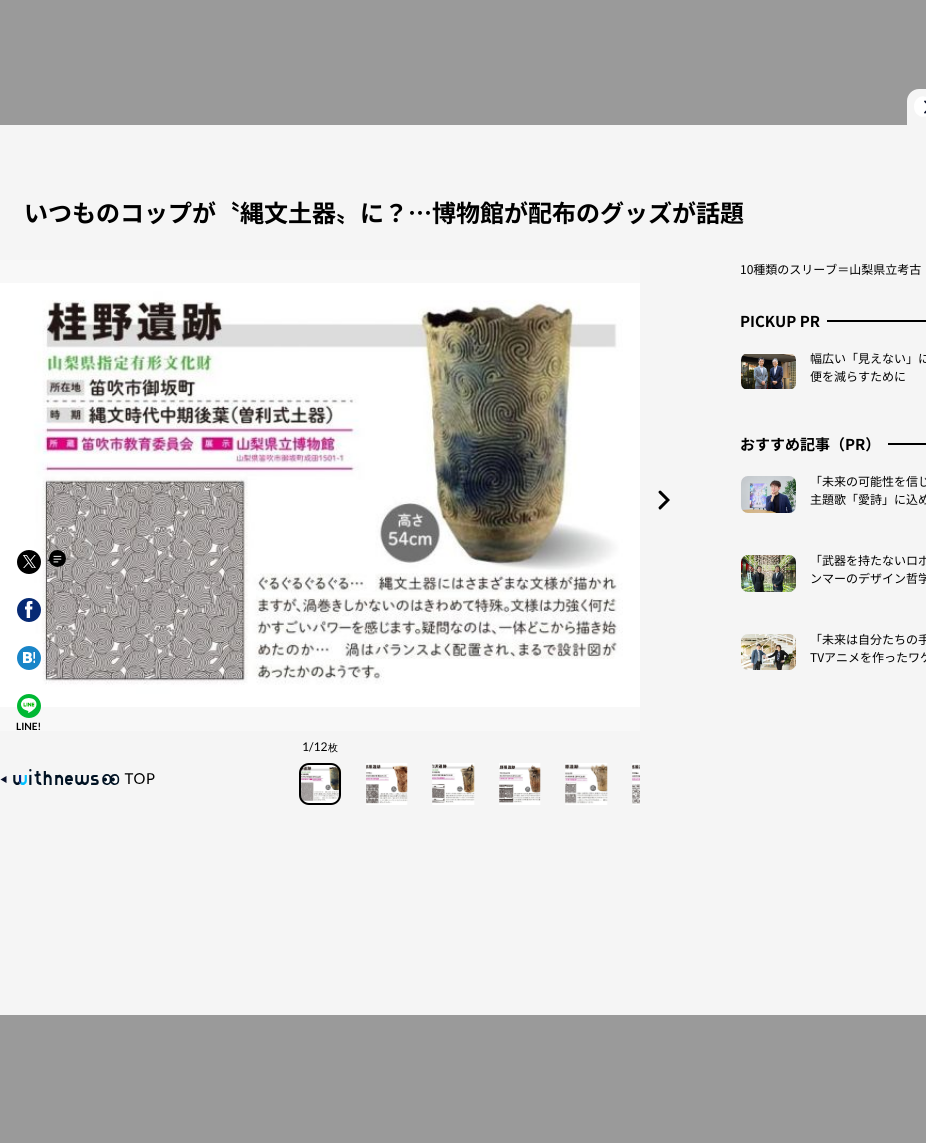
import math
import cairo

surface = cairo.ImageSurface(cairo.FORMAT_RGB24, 926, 1143)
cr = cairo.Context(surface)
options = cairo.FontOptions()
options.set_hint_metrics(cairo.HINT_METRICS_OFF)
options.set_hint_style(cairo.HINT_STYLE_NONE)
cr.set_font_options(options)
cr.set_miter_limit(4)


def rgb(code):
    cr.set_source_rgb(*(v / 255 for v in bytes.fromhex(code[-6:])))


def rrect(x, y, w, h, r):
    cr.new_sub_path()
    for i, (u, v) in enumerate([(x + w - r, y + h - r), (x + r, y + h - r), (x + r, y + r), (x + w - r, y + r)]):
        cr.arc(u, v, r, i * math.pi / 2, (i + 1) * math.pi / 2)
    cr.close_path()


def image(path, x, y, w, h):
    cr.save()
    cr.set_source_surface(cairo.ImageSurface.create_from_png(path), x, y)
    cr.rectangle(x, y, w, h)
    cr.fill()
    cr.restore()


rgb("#9a9a9a")
cr.paint()
rgb("#f5f5f5")
cr.new_path()
cr.move_to(919, 89)
cr.line_to(926, 89)
cr.line_to(926, 125)
cr.line_to(907, 125)
cr.line_to(907, 101)
cr.curve_to(907, 94.5, 912.5, 89, 919, 89)
cr.close_path()
cr.fill()
image("img/1.png", 914, 96, 12, 21)
cr.rectangle(0, 125, 926, 890)
cr.fill()
rgb("#000000")
cr.rectangle(827, 320, 99, 2)
cr.fill()
rgb("#f8f8f8")
rrect(740.5, 352.5, 56, 38, 7.5)
cr.fill_preserve()
rgb("#f5f5f5")
cr.set_line_width(1)
cr.stroke()
image("img/2.png", 741, 354, 55, 35)
rgb("#000000")
cr.rectangle(888, 443, 38, 2)
cr.fill()
image("img/3.png", 741, 476, 55, 37)
image("img/4.png", 741, 555, 55, 37)
image("img/5.png", 741, 634, 55, 36)
rgb("#f8f8f8")
cr.rectangle(0, 260, 640, 471)
cr.fill()
image("img/6.png", 0, 283, 640, 424)
image("img/7.png", 658, 490, 12, 20)
image("img/8.png", 299, 763, 43, 42)
rrect(300, 764, 40, 40, 9)
rgb("#000000")
cr.set_line_width(2)
cr.stroke()
image("img/9.png", 366, 763, 42, 42)
image("img/10.png", 432, 763, 43, 42)
image("img/11.png", 499, 763, 42, 42)
image("img/12.png", 565, 763, 43, 42)
image("img/13.png", 632, 763, 8, 42)
image("img/14.png", 0, 769, 155, 16)
cr.arc(29, 562, 12, 0, 2 * math.pi)
cr.fill()
image("img/15.png", 23, 555, 13, 13)
image("img/16.png", 47, 550, 19, 17)
rgb("#072a74")
cr.arc(29, 610, 12, 0, 2 * math.pi)
cr.fill()
image("img/17.png", 25, 601, 8, 17)
rgb("#1985c8")
cr.arc(29, 658, 12, 0, 2 * math.pi)
cr.fill()
image("img/18.png", 23, 652, 12, 11)
rgb("#00b833")
cr.arc(29, 706, 12, 0, 2 * math.pi)
cr.fill()
image("img/19.png", 21, 698, 16, 15)
cr.select_font_face("Noto Sans JP", cairo.FONT_SLANT_NORMAL, cairo.FONT_WEIGHT_BOLD)
cr.set_font_size(24)
rgb("#000000")
cr.move_to(24, 222)
cr.show_text("いつものコップが〝縄文土器〟に？…博物館が配布のグッズが話題")
cr.select_font_face("Noto Sans JP")
cr.set_font_size(12)
cr.move_to(740, 274)
cr.show_text("10種類のスリーブ＝山梨県立考古")
cr.select_font_face("Noto Sans JP", cairo.FONT_SLANT_NORMAL, cairo.FONT_WEIGHT_BOLD)
cr.set_font_size(15)
cr.move_to(740, 327)
cr.show_text("PICKUP PR")
cr.select_font_face("Noto Sans JP")
cr.set_font_size(12)
cr.move_to(810, 363)
cr.show_text("幅広い「見えない」に")
cr.move_to(810, 381)
cr.show_text("便を減らすために")
cr.select_font_face("Noto Sans JP", cairo.FONT_SLANT_NORMAL, cairo.FONT_WEIGHT_BOLD)
cr.set_font_size(15)
cr.move_to(740, 450)
cr.show_text("おすすめ記事（PR）")
cr.select_font_face("Noto Sans JP")
cr.set_font_size(12)
for x, y, s in [
    (810, 486, "「未来の可能性を信じ"),
    (810, 504, "主題歌「愛詩」に込め"),
    (810, 565, "「武器を持たないロボ"),
    (810, 583, "ンマーのデザイン哲学"),
    (810, 644, "「未来は自分たちの手"),
    (810, 662, "TVアニメを作ったワケ"),
]:
    cr.move_to(x, y)
    cr.show_text(s)
cr.select_font_face("Lato")
cr.move_to(302, 751)
cr.show_text("1/12")
cr.select_font_face("WenQuanYi Zen Hei Medium")
cr.set_font_size(10)
cr.move_to(328, 751)
cr.show_text("枚")
cr.select_font_face("Lato", cairo.FONT_SLANT_NORMAL, cairo.FONT_WEIGHT_BOLD)
cr.move_to(16, 730)
cr.show_text("LINE!")
surface.write_to_png("page.png")
